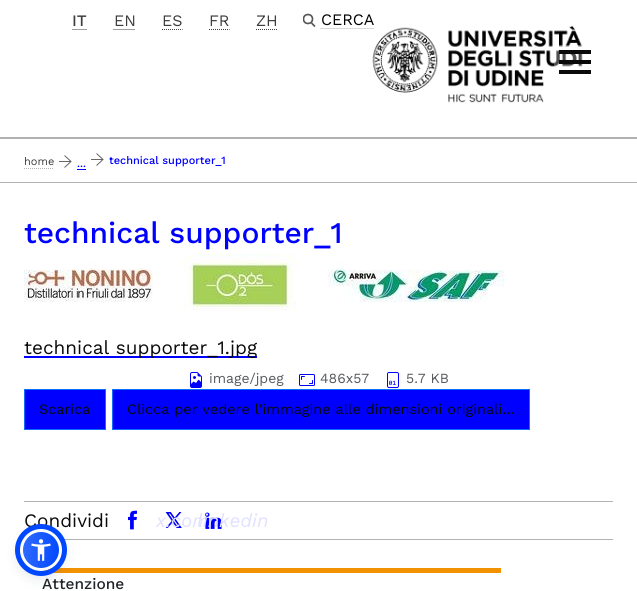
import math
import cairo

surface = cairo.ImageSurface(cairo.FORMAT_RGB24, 637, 591)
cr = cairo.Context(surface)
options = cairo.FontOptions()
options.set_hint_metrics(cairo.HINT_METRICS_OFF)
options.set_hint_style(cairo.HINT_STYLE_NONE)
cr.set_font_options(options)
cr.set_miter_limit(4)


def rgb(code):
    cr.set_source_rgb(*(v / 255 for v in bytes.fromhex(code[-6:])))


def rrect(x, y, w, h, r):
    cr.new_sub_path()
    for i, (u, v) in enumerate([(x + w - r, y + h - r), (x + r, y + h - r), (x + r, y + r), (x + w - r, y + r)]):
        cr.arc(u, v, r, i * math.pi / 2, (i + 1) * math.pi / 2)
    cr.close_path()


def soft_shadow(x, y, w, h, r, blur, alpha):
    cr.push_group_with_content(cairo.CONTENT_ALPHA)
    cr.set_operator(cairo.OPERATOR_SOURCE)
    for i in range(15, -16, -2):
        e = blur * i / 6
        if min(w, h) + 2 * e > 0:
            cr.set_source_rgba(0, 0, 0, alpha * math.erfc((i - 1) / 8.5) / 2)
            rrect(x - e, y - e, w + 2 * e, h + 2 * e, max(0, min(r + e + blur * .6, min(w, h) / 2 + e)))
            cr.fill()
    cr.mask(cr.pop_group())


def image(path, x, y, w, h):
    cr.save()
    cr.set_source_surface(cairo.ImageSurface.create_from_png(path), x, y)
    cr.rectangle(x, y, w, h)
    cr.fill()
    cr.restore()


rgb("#ffffff")
cr.paint()
rgb("#b2b2b2")
cr.rectangle(0, 137, 637, 2)
cr.fill()
cr.new_path()
cr.move_to(72.5, 29.5)
cr.line_to(87, 29.5)
rgb("#3e3e3e")
cr.set_line_width(1)
cr.set_dash([1, 1])
cr.stroke()
cr.new_path()
cr.move_to(113.5, 29.5)
cr.line_to(135.5, 29.5)
cr.stroke()
cr.new_path()
cr.move_to(162, 29.5)
cr.line_to(182.5, 29.5)
cr.stroke()
cr.new_path()
cr.move_to(209, 29.5)
cr.line_to(229.5, 29.5)
cr.stroke()
cr.new_path()
cr.move_to(256, 29.5)
cr.line_to(277.5, 29.5)
cr.stroke()
cr.save()
cr.rectangle(303, 13, 13, 15)
cr.clip()
cr.arc(308, 19, 4.5, 0, 2 * math.pi)
rgb("#575756")
cr.set_line_width(1.7)
cr.set_dash([])
cr.stroke()
cr.restore()
cr.new_path()
cr.move_to(311.5, 23)
cr.line_to(315, 26.5)
rgb("#575756")
cr.set_line_width(1.7)
cr.set_dash([])
cr.stroke()
image("img/1.png", 372, 25, 211, 78)
cr.new_path()
cr.move_to(320.5, 28.5)
cr.line_to(374, 28.5)
rgb("#b2b2b2")
cr.set_line_width(1)
cr.set_dash([1, 1])
cr.stroke()
cr.set_source_rgba(0.996, 0.996, 0.996, 0.3)
cr.rectangle(554, 45, 29, 22)
cr.fill()
rgb("#0a0a0a")
cr.rectangle(559, 50, 32, 4)
cr.rectangle(559, 60, 32, 4)
cr.rectangle(559, 70, 32, 4)
cr.fill()
rgb("#b2b2b2")
cr.rectangle(0, 182, 637, 1)
cr.fill()
cr.new_path()
cr.move_to(24, 168.5)
cr.line_to(54, 168.5)
cr.stroke()
rgb("#686867")
cr.rectangle(59, 161, 12, 1)
cr.fill()
cr.new_path()
cr.move_to(64.5, 155.5)
cr.line_to(71, 161.5)
cr.line_to(64.5, 167.5)
rgb("#575756")
cr.set_line_width(0.9)
cr.set_dash([])
cr.stroke()
rgb("#686867")
cr.rectangle(91, 159, 12, 1)
cr.fill()
cr.new_path()
cr.move_to(96.5, 153.5)
cr.line_to(103, 159.5)
cr.line_to(96.5, 165.5)
rgb("#575756")
cr.stroke()
rgb("#0000ff")
cr.rectangle(77, 169, 9, 1)
cr.fill()
image("img/2.png", 24, 254, 481, 57)
cr.rectangle(24, 356, 233, 2)
cr.fill()
image("img/3.png", 190, 372, 12, 16)
image("img/4.png", 299, 374, 16, 12)
image("img/5.png", 387, 372, 12, 16)
cr.rectangle(24.5, 389.5, 81, 40)
cr.fill_preserve()
rgb("#0d6efd")
cr.set_line_width(1)
cr.stroke()
rgb("#0000ff")
cr.rectangle(112.5, 389.5, 417, 40)
cr.fill_preserve()
rgb("#0d6efd")
cr.stroke()
rgb("#b2b2b2")
cr.rectangle(24, 501, 589, 1)
cr.fill()
cr.rectangle(58, 539, 555, 1)
cr.fill()
image("img/6.png", 128, 510, 9, 20)
image("img/7.png", 165, 512, 17, 16)
rgb("#f39200")
cr.rectangle(37, 568, 464, 5)
cr.fill()
rgb("#5d6494")
soft_shadow(20, 531, 42, 42, 21, 2, 0.2)
rgb("#252c61")
soft_shadow(20, 534, 42, 42, 21, 7.5, 0.15)
cr.save()
rrect(20, 529, 42, 42, 21)
cr.clip()
gradient = cairo.LinearGradient(21, 548, 61, 552)
gradient.add_color_stop_rgba(0, 0.196, 0.424, 1, 1)
gradient.add_color_stop_rgba(1, 0, 0.282, 1, 1)
cr.set_source(gradient)
cr.rectangle(23, 532, 36, 36)
cr.fill()
cr.restore()
cr.arc(41, 550, 19.5, 0, 2 * math.pi)
rgb("#ffffff")
cr.set_line_width(3)
cr.stroke()
cr.select_font_face("Work Sans Medium")
cr.set_font_size(16)
rgb("#3e3e3e")
cr.move_to(72, 26)
cr.show_text("IT")
cr.select_font_face("Work Sans")
for x, y, s in [
    (114, 26, "EN"),
    (162, 26, "ES"),
    (209, 26, "FR"),
    (256, 26, "ZH"),
]:
    cr.move_to(x, y)
    cr.show_text(s)
rgb("#000000")
cr.move_to(321, 25)
cr.show_text("CERCA")
cr.set_font_size(11)
rgb("#3e3e3e")
cr.move_to(24, 165)
cr.show_text("home")
cr.select_font_face("Work Sans Medium")
rgb("#0000ff")
cr.move_to(109, 164)
cr.show_text("technical supporter_1")
cr.move_to(77, 167)
cr.show_text("...")
cr.set_font_size(30)
cr.move_to(24, 243)
cr.show_text("technical supporter_1")
cr.select_font_face("Work Sans")
cr.set_font_size(19)
rgb("#0a0a0a")
cr.move_to(24, 354)
cr.show_text("technical supporter_1.jpg")
cr.set_font_size(14)
rgb("#595c5f")
for x, y, s in [
    (209, 383, "image/jpeg"),
    (320, 383, "486x57"),
    (406, 383, "5.7 KB"),
]:
    cr.move_to(x, y)
    cr.show_text(s)
cr.set_font_size(14.4)
rgb("#0a0a0a")
cr.move_to(39, 414)
cr.show_text("Scarica")
cr.move_to(127, 414)
cr.show_text("Clicca per vedere l'immagine alle dimensioni originali…")
cr.set_font_size(19)
cr.move_to(24, 527)
cr.show_text("Condividi")
cr.select_font_face("Work Sans", cairo.FONT_SLANT_ITALIC)
rgb("#e1e1ff")
cr.move_to(156, 527)
cr.show_text("x.com")
image("img/8.png", 205, 512, 17, 17)
cr.move_to(197, 527)
cr.show_text("linkedin")
cr.select_font_face("Work Sans Medium")
cr.set_font_size(15.5)
rgb("#212529")
cr.move_to(42, 589)
cr.show_text("Attenzione")
cr.new_path()
cr.arc(41, 550, 23.5, 0, 2 * math.pi)
rgb("#0048ff")
cr.set_line_width(5)
cr.stroke()
image("img/9.png", 31, 539, 20, 22)
surface.write_to_png("page.png")
